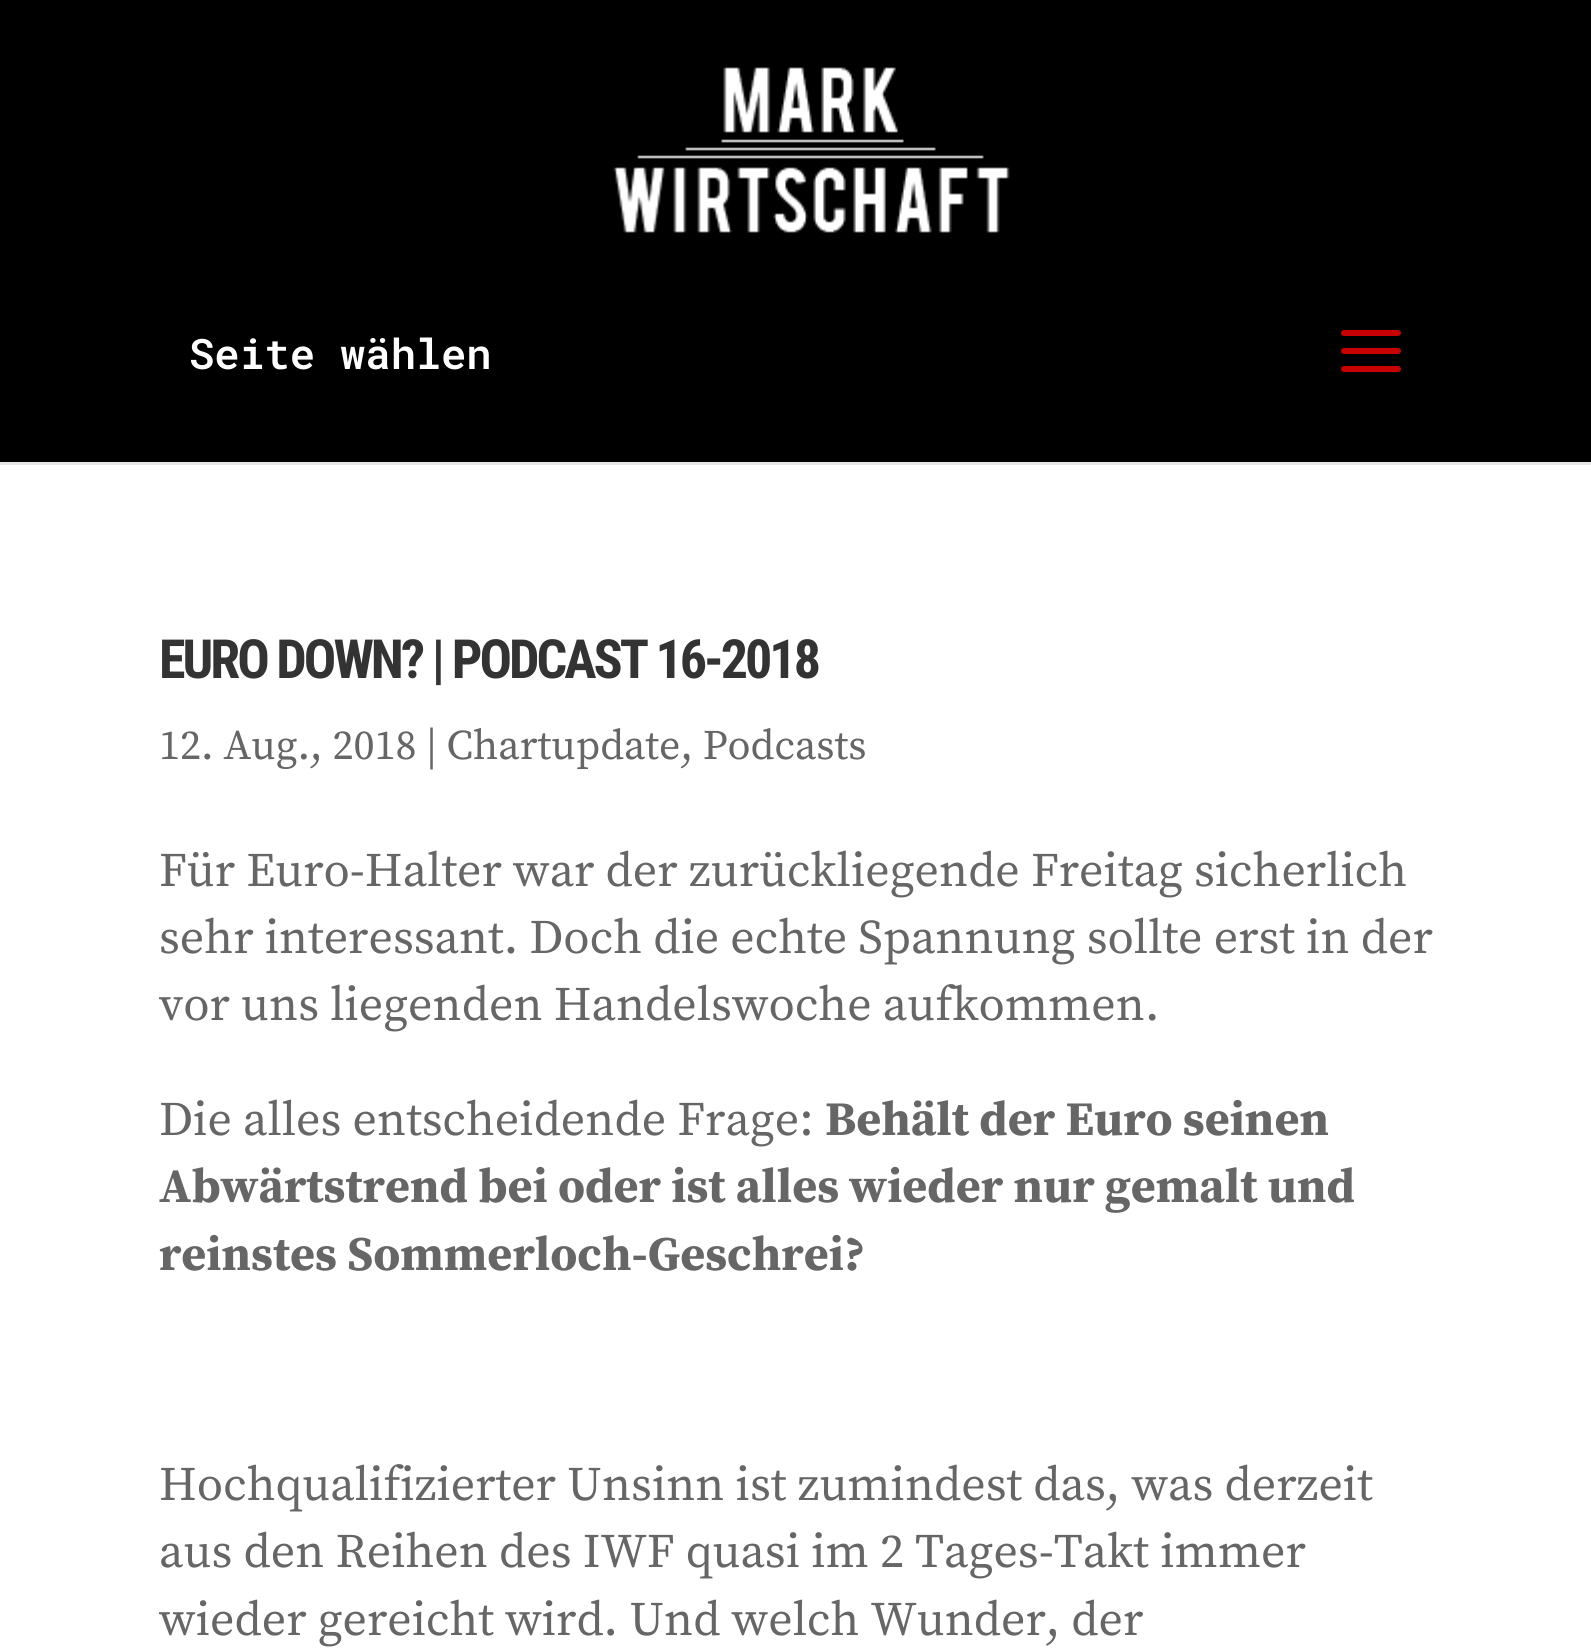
import math
import cairo

surface = cairo.ImageSurface(cairo.FORMAT_RGB24, 1591, 1651)
cr = cairo.Context(surface)
options = cairo.FontOptions()
options.set_hint_metrics(cairo.HINT_METRICS_OFF)
options.set_hint_style(cairo.HINT_STYLE_NONE)
cr.set_font_options(options)
cr.set_miter_limit(4)


def rgb(code):
    cr.set_source_rgb(*(v / 255 for v in bytes.fromhex(code[-6:])))


def tracked(x, y, s, letter, word):
    cr.move_to(x, y)
    for ch in s:
        cr.show_text(ch)
        cr.rel_move_to(letter + word * (ch == ' '), 0)


def image(path, x, y, w, h):
    cr.save()
    cr.set_source_surface(cairo.ImageSurface.create_from_png(path), x, y)
    cr.rectangle(x, y, w, h)
    cr.fill()
    cr.restore()


rgb("#ffffff")
cr.paint()
rgb("#e6e6e6")
cr.rectangle(0, 462, 1591, 3)
cr.fill()
rgb("#000000")
cr.rectangle(0, 0, 1591, 462)
cr.fill()
image("img/1.png", 613, 67, 397, 166)
image("img/2.png", 1341, 330, 60, 42)
cr.select_font_face("Roboto Mono SemiBold")
cr.set_font_size(42)
rgb("#ffffff")
cr.move_to(189, 369)
cr.show_text("Seite wählen")
cr.select_font_face("Roboto Condensed", cairo.FONT_SLANT_NORMAL, cairo.FONT_WEIGHT_BOLD)
cr.set_font_size(54)
rgb("#333333")
tracked(159, 678, "EURO DOWN? | PODCAST 16-2018", -3, 0)
cr.select_font_face("Source Serif Pro")
cr.set_font_size(42)
rgb("#666666")
cr.move_to(159, 759)
cr.show_text("12. Aug., 2018 | Chartupdate, Podcasts")
cr.set_font_size(48)
for x, y, s in [
    (159, 886, "Für Euro-Halter war der zurückliegende Freitag sicherlich"),
    (159, 953, "sehr interessant. Doch die echte Spannung sollte erst in der"),
    (159, 1020, "vor uns liegenden Handelswoche aufkommen."),
    (159, 1135, "Die alles entscheidende Frage:"),
]:
    cr.move_to(x, y)
    cr.show_text(s)
cr.select_font_face("Source Serif Pro", cairo.FONT_SLANT_NORMAL, cairo.FONT_WEIGHT_BOLD)
for x, y, s in [
    (825, 1135, "Behält der Euro seinen"),
    (159, 1202, "Abwärtstrend bei oder ist alles wieder nur gemalt und"),
    (159, 1270, "reinstes Sommerloch-Geschrei?"),
]:
    cr.move_to(x, y)
    cr.show_text(s)
cr.select_font_face("Source Serif Pro")
for x, y, s in [
    (159, 1500, "Hochqualifizierter Unsinn ist zumindest das, was derzeit"),
    (159, 1567, "aus den Reihen des IWF quasi im 2 Tages-Takt immer"),
    (159, 1635, "wieder gereicht wird. Und welch Wunder, der"),
]:
    cr.move_to(x, y)
    cr.show_text(s)
surface.write_to_png("page.png")
